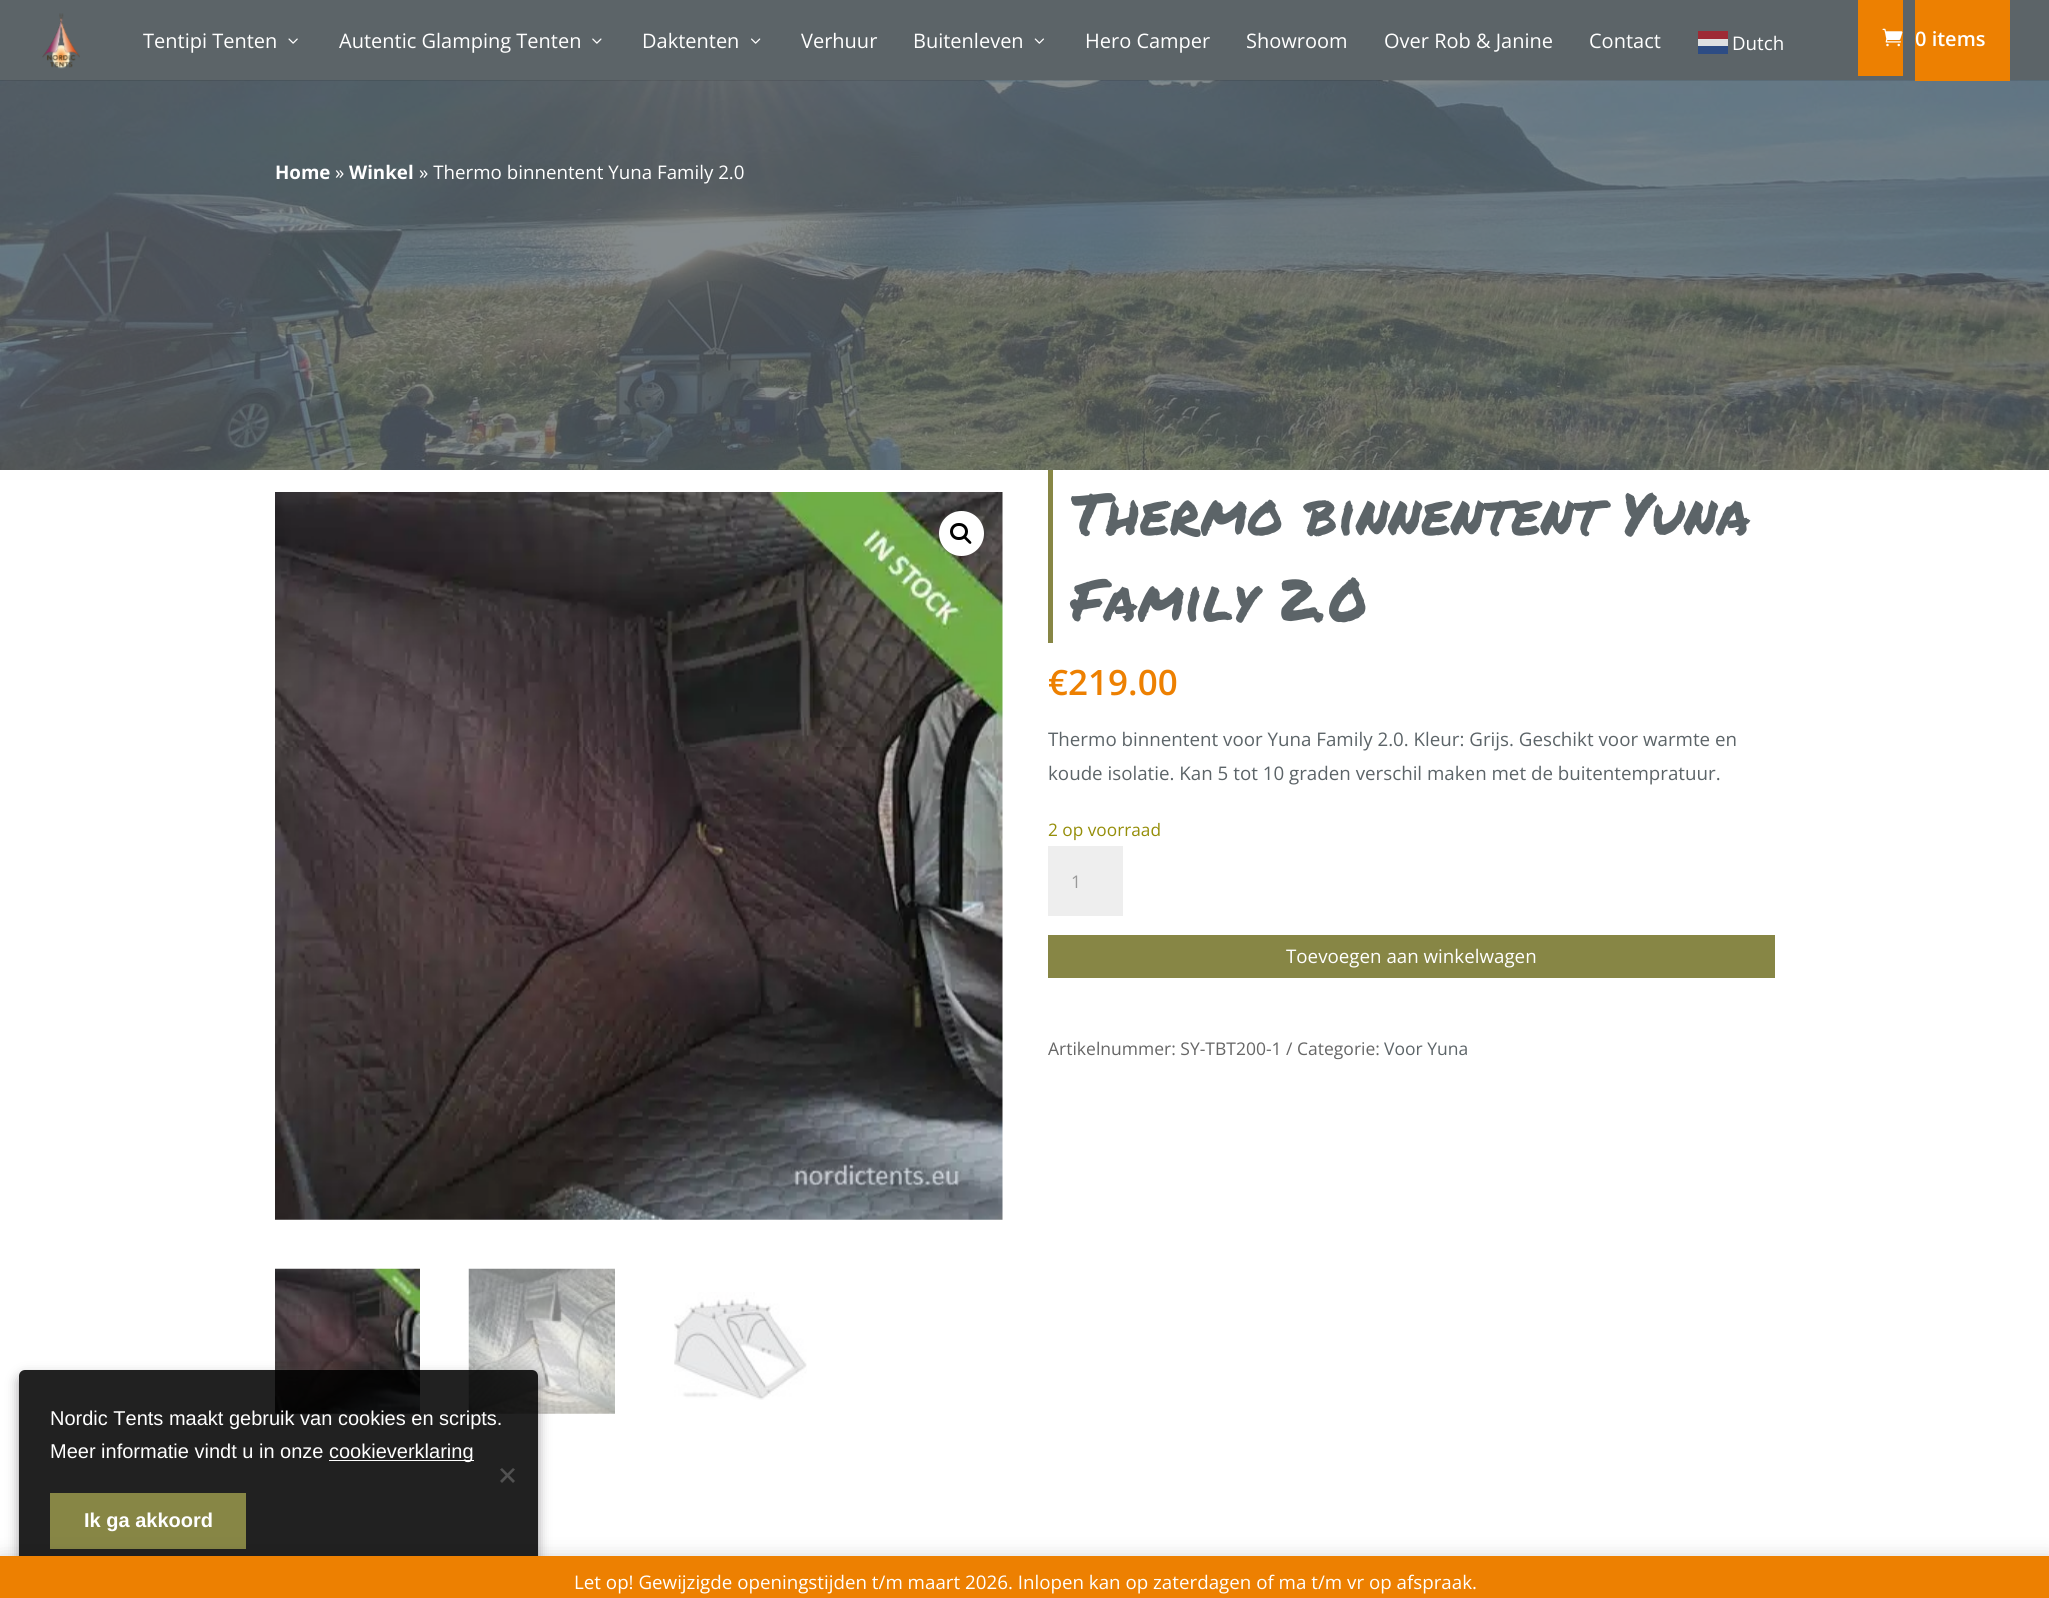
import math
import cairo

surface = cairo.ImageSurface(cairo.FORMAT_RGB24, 2049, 1598)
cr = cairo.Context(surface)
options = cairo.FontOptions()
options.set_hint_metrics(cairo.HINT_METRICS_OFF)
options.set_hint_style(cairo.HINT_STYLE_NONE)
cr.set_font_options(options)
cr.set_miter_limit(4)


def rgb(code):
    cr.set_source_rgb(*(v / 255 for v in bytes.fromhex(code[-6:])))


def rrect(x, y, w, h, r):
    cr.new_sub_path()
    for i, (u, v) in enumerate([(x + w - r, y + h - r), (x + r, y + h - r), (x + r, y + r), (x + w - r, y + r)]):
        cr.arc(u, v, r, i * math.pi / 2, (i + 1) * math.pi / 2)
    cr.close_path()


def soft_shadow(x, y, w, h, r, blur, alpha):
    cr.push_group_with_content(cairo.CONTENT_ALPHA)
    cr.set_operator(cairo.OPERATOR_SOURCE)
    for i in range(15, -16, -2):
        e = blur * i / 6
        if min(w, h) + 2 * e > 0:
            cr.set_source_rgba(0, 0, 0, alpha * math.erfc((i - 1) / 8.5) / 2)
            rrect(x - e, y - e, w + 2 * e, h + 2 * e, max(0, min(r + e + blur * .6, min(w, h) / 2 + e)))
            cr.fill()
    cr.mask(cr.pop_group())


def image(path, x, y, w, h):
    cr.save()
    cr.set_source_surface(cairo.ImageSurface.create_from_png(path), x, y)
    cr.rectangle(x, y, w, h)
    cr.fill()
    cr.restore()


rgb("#ffffff")
cr.paint()
image("img/7.png", 0, 80, 2049, 390)
cr.set_source_rgba(0, 0, 0, 0.1)
cr.rectangle(0, 80, 2049, 1)
cr.fill()
rgb("#5c6468")
cr.rectangle(0, 0, 2049, 80)
cr.fill()
image("img/1.png", 42, 13, 38, 56)
image("img/2.png", 288, 38, 10, 6)
image("img/3.png", 592, 38, 10, 6)
image("img/4.png", 751, 38, 10, 6)
image("img/5.png", 1034, 38, 10, 6)
for x, y, w, h, color in [
    (1698, 31, 30, 8, "#9e2a35"),
    (1698, 39, 30, 7, "#dee0e1"),
    (1698, 46, 30, 8, "#2d4c84"),
    (1858, 0, 45, 76, "#ed8001"),
]:
    rgb(color)
    cr.rectangle(x, y, w, h)
    cr.fill()
image("img/6.png", 1882, 28, 21, 19)
cr.rectangle(1915, 0, 95, 81)
cr.fill()
image("img/8.png", 275, 492, 728, 728)
rgb("#ffffff")
cr.arc(961.5, 533.5, 22.5, 0, 2 * math.pi)
cr.fill()
rrect(951.5, 524.5, 15, 14, 7)
rgb("#000000")
cr.set_line_width(3)
cr.stroke()
cr.new_path()
cr.move_to(964, 536.5)
cr.curve_to(965.5, 535, 967.5, 538.5, 968.5, 539)
cr.curve_to(969, 540, 972.5, 542, 971, 543.5)
cr.curve_to(969.5, 545, 967.5, 541.5, 966.5, 541)
cr.curve_to(966, 540, 962.5, 538, 964, 536.5)
cr.close_path()
cr.fill()
image("img/9.png", 275, 1268, 145, 146)
image("img/10.png", 468, 1268, 147, 146)
image("img/11.png", 674, 1292, 133, 108)
for x, y, w, h, color in [
    (1048, 470, 5, 173, "#878645"),
    (1048, 846, 75, 70, "#eeeeee"),
    (1048, 935, 727, 43, "#878645"),
]:
    rgb(color)
    cr.rectangle(x, y, w, h)
    cr.fill()
cr.save()
cr.set_fill_rule(cairo.FILL_RULE_EVEN_ODD)
cr.new_path()
cr.move_to(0, 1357)
cr.line_to(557, 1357)
cr.line_to(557, 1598)
cr.line_to(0, 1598)
cr.close_path()
cr.move_to(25, 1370)
cr.line_to(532, 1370)
cr.curve_to(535.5, 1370, 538, 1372.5, 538, 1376)
cr.line_to(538, 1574)
cr.curve_to(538, 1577.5, 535.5, 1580, 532, 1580)
cr.line_to(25, 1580)
cr.curve_to(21.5, 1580, 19, 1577.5, 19, 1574)
cr.line_to(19, 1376)
cr.curve_to(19, 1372.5, 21.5, 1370, 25, 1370)
cr.close_path()
cr.clip()
rgb("#6b676d")
soft_shadow(19, 1376, 519, 210, 6, 6, 0.65)
cr.restore()
cr.set_source_rgba(0, 0, 0, 0.87)
rrect(19, 1370, 519, 210, 6)
cr.fill()
rgb("#ffffff")
cr.rectangle(329, 1460, 145, 1)
cr.fill()
rgb("#515151")
cr.new_path()
cr.move_to(513, 1468)
cr.line_to(515, 1469.5)
cr.line_to(502, 1483)
cr.line_to(500, 1481)
cr.close_path()
cr.fill()
cr.new_path()
cr.move_to(500, 1469.5)
cr.line_to(502, 1468)
cr.line_to(515, 1481)
cr.line_to(513, 1483)
cr.close_path()
cr.fill()
rgb("#878645")
cr.rectangle(50, 1493, 196, 56)
cr.fill()
rgb("#000000")
soft_shadow(0, 1558, 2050, 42, 0, 9.5, 0.2)
rgb("#ed8001")
cr.rectangle(0, 1556, 2049, 42)
cr.fill()
cr.select_font_face("Open Sans")
cr.set_font_size(20)
rgb("#ffffff")
for x, y, s in [
    (143, 48, "Tentipi Tenten"),
    (339, 48, "Autentic Glamping Tenten"),
    (642, 48, "Daktenten"),
    (801, 48, "Verhuur"),
    (913, 48, "Buitenleven"),
    (1085, 48, "Hero Camper"),
    (1246, 48, "Showroom"),
    (1384, 48, "Over Rob & Janine"),
    (1589, 48, "Contact"),
]:
    cr.move_to(x, y)
    cr.show_text(s)
cr.set_font_size(18.75)
cr.move_to(1732, 50)
cr.show_text("Dutch")
cr.select_font_face("Open Sans SemiBold")
cr.set_font_size(20)
cr.move_to(1915, 46)
cr.show_text("0 items")
cr.select_font_face("Open Sans", cairo.FONT_SLANT_NORMAL, cairo.FONT_WEIGHT_BOLD)
cr.set_font_size(18.75)
cr.move_to(275, 179)
cr.show_text("Home")
cr.select_font_face("Open Sans")
cr.move_to(335, 179)
cr.show_text("»")
cr.select_font_face("Open Sans", cairo.FONT_SLANT_NORMAL, cairo.FONT_WEIGHT_BOLD)
cr.move_to(349, 179)
cr.show_text("Winkel")
cr.select_font_face("Open Sans")
cr.move_to(419, 179)
cr.show_text("» Thermo binnentent Yuna Family 2.0")
cr.select_font_face("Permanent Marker")
cr.set_font_size(57.5)
rgb("#5c6468")
cr.move_to(1071, 535)
cr.show_text("Thermo binnentent Yuna")
cr.move_to(1071, 621)
cr.show_text("Family 2.0")
cr.select_font_face("Open Sans SemiBold")
cr.set_font_size(35)
rgb("#ed8001")
cr.move_to(1048, 695)
cr.show_text("€219.00")
cr.select_font_face("Open Sans")
cr.set_font_size(18.75)
rgb("#5c6468")
cr.move_to(1048, 746)
cr.show_text("Thermo binnentent voor Yuna Family 2.0. Kleur: Grijs. Geschikt voor warmte en")
cr.move_to(1048, 780)
cr.show_text("koude isolatie. Kan 5 tot 10 graden verschil maken met de buitentempratuur.")
cr.set_font_size(17.25)
rgb("#958e09")
cr.move_to(1048, 836)
cr.show_text("2 op voorraad")
cr.set_font_size(17.5)
rgb("#999999")
cr.move_to(1071, 888)
cr.show_text("1")
cr.set_font_size(18.75)
rgb("#ffffff")
cr.move_to(1286, 963)
cr.show_text("Toevoegen aan winkelwagen")
cr.set_font_size(17.5)
rgb("#666666")
cr.move_to(1048, 1055)
cr.show_text("Artikelnummer: SY-TBT200-1 / Categorie:")
rgb("#5c6468")
cr.move_to(1384, 1055)
cr.show_text("Voor Yuna")
cr.select_font_face("Liberation Sans")
cr.set_font_size(20)
rgb("#ffffff")
for x, y, s in [
    (50, 1425, "Nordic Tents maakt gebruik van cookies en scripts."),
    (50, 1458, "Meer informatie vindt u in onze"),
    (329, 1458, "cookieverklaring"),
]:
    cr.move_to(x, y)
    cr.show_text(s)
cr.select_font_face("Liberation Sans", cairo.FONT_SLANT_NORMAL, cairo.FONT_WEIGHT_BOLD)
cr.move_to(84, 1527)
cr.show_text("Ik ga akkoord")
cr.select_font_face("Open Sans")
cr.set_font_size(18.75)
cr.move_to(574, 1589)
cr.show_text("Let op! Gewijzigde openingstijden t/m maart 2026. Inlopen kan op zaterdagen of ma t/m vr op afspraak.")
surface.write_to_png("page.png")
